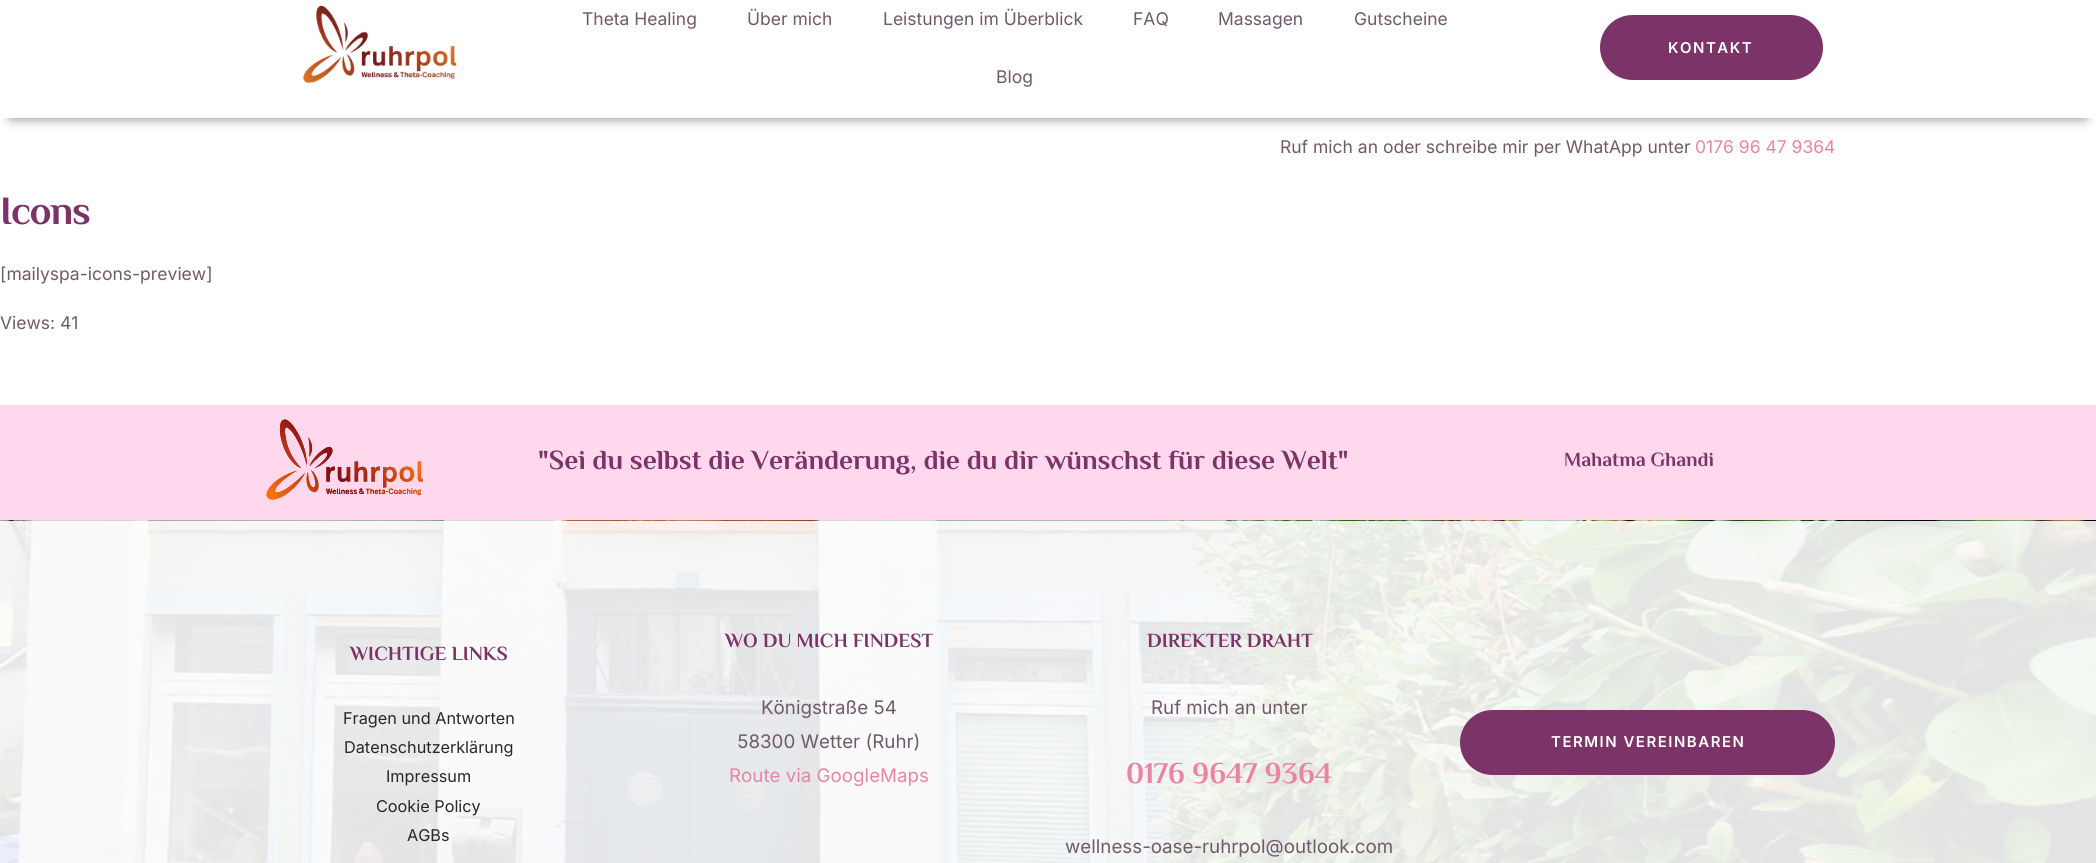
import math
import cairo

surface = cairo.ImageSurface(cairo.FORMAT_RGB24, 2096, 863)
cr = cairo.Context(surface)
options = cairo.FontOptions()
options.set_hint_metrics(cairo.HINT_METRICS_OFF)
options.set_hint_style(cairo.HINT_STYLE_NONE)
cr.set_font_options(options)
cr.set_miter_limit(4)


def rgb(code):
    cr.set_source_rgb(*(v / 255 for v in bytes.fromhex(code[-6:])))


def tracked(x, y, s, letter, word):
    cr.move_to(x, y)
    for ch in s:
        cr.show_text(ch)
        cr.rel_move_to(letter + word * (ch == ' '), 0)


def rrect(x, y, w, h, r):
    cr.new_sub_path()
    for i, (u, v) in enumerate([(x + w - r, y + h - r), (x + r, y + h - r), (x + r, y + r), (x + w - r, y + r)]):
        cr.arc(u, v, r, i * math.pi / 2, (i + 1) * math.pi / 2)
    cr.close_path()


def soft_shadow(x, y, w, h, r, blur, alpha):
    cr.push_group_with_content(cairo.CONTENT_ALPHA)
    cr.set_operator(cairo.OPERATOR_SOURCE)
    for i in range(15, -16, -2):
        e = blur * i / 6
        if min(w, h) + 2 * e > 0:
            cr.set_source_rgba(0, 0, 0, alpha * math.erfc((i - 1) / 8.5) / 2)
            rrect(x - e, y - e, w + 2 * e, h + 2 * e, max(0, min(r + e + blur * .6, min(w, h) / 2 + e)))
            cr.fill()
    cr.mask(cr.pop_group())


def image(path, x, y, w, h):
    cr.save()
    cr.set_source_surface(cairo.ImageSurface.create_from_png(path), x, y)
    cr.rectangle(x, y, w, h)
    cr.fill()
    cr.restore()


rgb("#ffffff")
cr.paint()
cr.save()
cr.set_fill_rule(cairo.FILL_RULE_EVEN_ODD)
cr.new_path()
cr.move_to(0, 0)
cr.line_to(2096, 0)
cr.line_to(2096, 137)
cr.line_to(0, 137)
cr.close_path()
cr.move_to(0, -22)
cr.line_to(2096, -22)
cr.line_to(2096, 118)
cr.line_to(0, 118)
cr.close_path()
cr.clip()
rgb("#000000")
soft_shadow(11, 0, 2074, 118, 0, 6, 0.5)
cr.restore()
image("img/1.png", 303, 5, 154, 79)
rgb("#7c3367")
rrect(1600, 15, 223, 65, 32.5)
cr.fill()
rgb("#ffd8ee")
cr.rectangle(0, 405, 2096, 115)
cr.fill()
image("img/2.png", 266, 419, 157, 81)
image("img/3.png", 0, 520, 2096, 343)
rgb("#7c3367")
rrect(1460, 710, 375, 65, 32.5)
cr.fill()
cr.select_font_face("Inter")
cr.set_font_size(17.5)
rgb("#6f5a69")
for x, y, s in [
    (582, 25, "Theta Healing"),
    (747, 25, "Über mich"),
    (883, 25, "Leistungen im Überblick"),
    (1133, 25, "FAQ"),
    (1218, 25, "Massagen"),
    (1354, 25, "Gutscheine"),
    (996, 83, "Blog"),
]:
    cr.move_to(x, y)
    cr.show_text(s)
cr.select_font_face("Inter SemiBold")
cr.set_font_size(15)
rgb("#ffffff")
tracked(1668, 53, "KONTAKT", 1.5, 0)
cr.select_font_face("Inter")
cr.set_font_size(17.5)
rgb("#6f5a69")
cr.move_to(1280, 153)
cr.show_text("Ruf mich an oder schreibe mir per WhatApp unter")
rgb("#e885a3")
cr.move_to(1695, 153)
cr.show_text("0176 96 47 9364")
cr.select_font_face("El Messiri", cairo.FONT_SLANT_NORMAL, cairo.FONT_WEIGHT_BOLD)
cr.set_font_size(40)
rgb("#7c3367")
tracked(0, 224, "Icons", -1.25, 0)
cr.select_font_face("Inter")
cr.set_font_size(17.5)
rgb("#6f5a69")
cr.move_to(0, 280)
cr.show_text("[mailyspa-icons-preview]")
cr.move_to(0, 329)
cr.show_text("Views: 41")
cr.select_font_face("El Messiri", cairo.FONT_SLANT_NORMAL, cairo.FONT_WEIGHT_BOLD)
cr.set_font_size(27.5)
rgb("#7c3367")
cr.move_to(538, 469)
cr.show_text("\"Sei du selbst die Veränderung, die du dir wünschst für diese Welt\"")
cr.set_font_size(20)
cr.move_to(1564, 466)
cr.show_text("Mahatma Ghandi")
cr.move_to(350, 660)
cr.show_text("WICHTIGE LINKS")
cr.select_font_face("Inter")
cr.set_font_size(16.25)
rgb("#292728")
for x, y, s in [
    (343, 724, "Fragen und Antworten"),
    (344, 753, "Datenschutzerklärung"),
    (386, 782, "Impressum"),
    (376, 812, "Cookie Policy"),
    (407, 841, "AGBs"),
]:
    cr.move_to(x, y)
    cr.show_text(s)
cr.select_font_face("El Messiri", cairo.FONT_SLANT_NORMAL, cairo.FONT_WEIGHT_BOLD)
cr.set_font_size(20)
rgb("#7c3367")
cr.move_to(725, 647)
cr.show_text("WO DU MICH FINDEST")
cr.select_font_face("Inter")
cr.set_font_size(18.75)
rgb("#6f5a69")
cr.move_to(761, 714)
cr.show_text("Königstraße 54")
cr.move_to(737, 748)
cr.show_text("58300 Wetter (Ruhr)")
rgb("#e885a3")
cr.move_to(729, 782)
cr.show_text("Route via GoogleMaps")
cr.select_font_face("El Messiri", cairo.FONT_SLANT_NORMAL, cairo.FONT_WEIGHT_BOLD)
cr.set_font_size(20)
rgb("#7c3367")
cr.move_to(1147, 647)
cr.show_text("DIREKTER DRAHT")
cr.select_font_face("Inter")
cr.set_font_size(18.75)
rgb("#6f5a69")
cr.move_to(1151, 714)
cr.show_text("Ruf mich an unter")
cr.select_font_face("El Messiri", cairo.FONT_SLANT_NORMAL, cairo.FONT_WEIGHT_BOLD)
cr.set_font_size(30)
rgb("#e885a3")
cr.move_to(1126, 783)
cr.show_text("0176 9647 9364")
cr.select_font_face("Inter")
cr.set_font_size(18.75)
rgb("#6f5a69")
cr.move_to(1065, 853)
cr.show_text("wellness-oase-ruhrpol@outlook.com")
cr.select_font_face("Inter SemiBold")
cr.set_font_size(15)
rgb("#ffffff")
tracked(1551, 747, "TERMIN VEREINBAREN", 1.5, 0)
surface.write_to_png("page.png")
